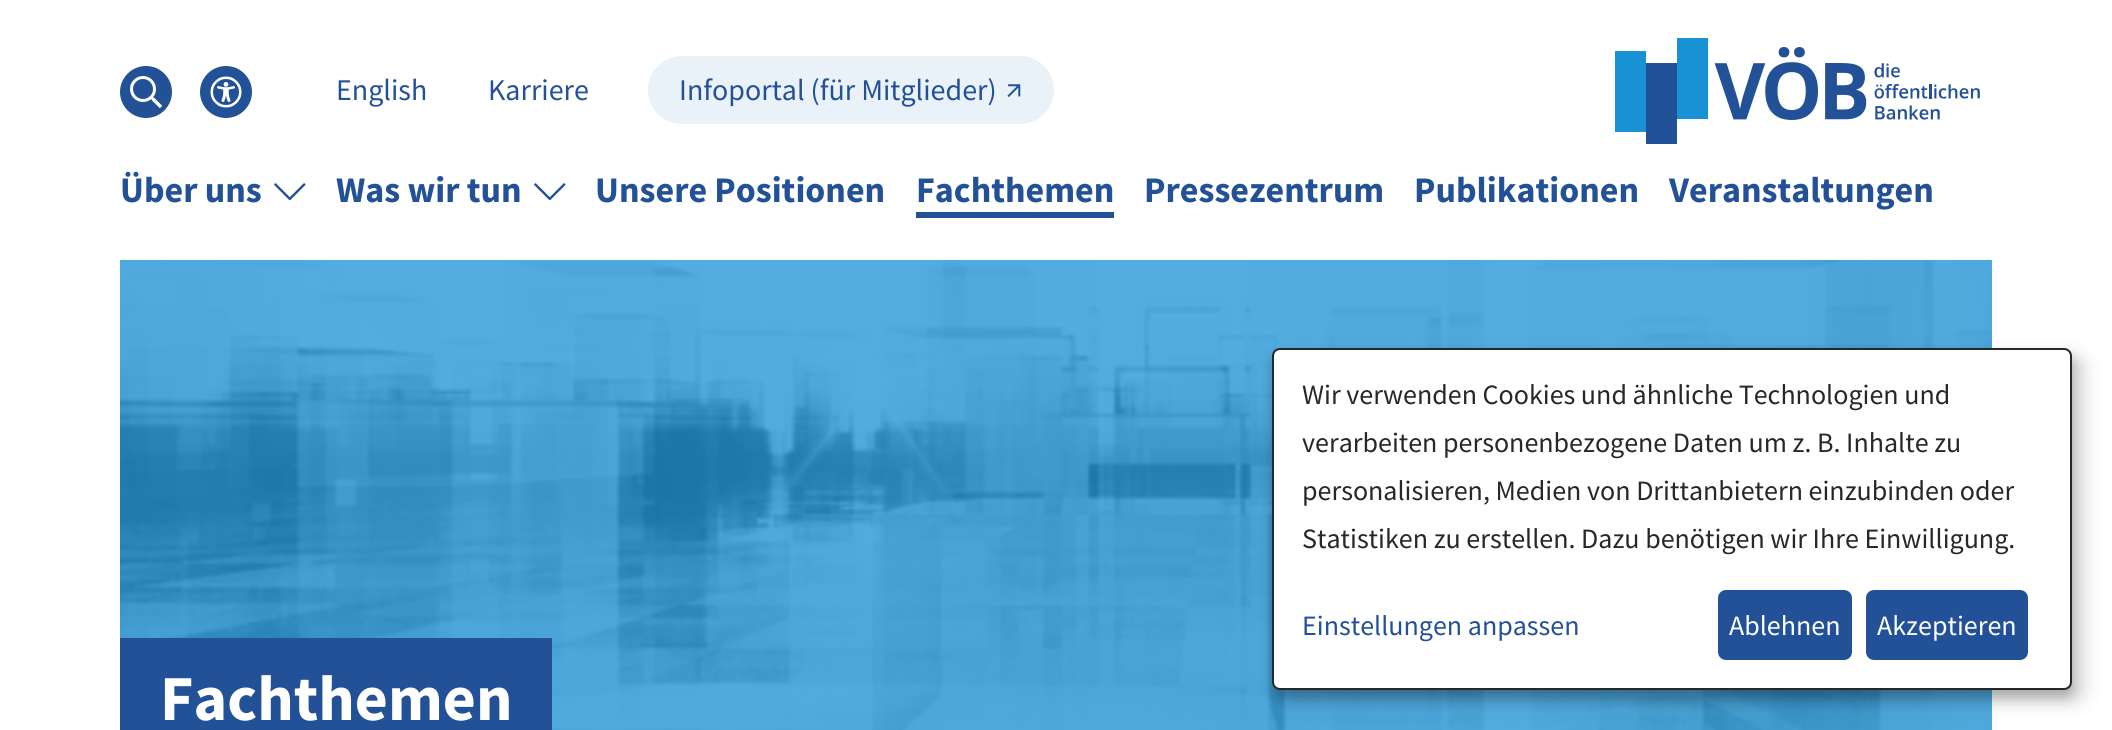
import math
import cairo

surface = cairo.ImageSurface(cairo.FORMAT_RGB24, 2112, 730)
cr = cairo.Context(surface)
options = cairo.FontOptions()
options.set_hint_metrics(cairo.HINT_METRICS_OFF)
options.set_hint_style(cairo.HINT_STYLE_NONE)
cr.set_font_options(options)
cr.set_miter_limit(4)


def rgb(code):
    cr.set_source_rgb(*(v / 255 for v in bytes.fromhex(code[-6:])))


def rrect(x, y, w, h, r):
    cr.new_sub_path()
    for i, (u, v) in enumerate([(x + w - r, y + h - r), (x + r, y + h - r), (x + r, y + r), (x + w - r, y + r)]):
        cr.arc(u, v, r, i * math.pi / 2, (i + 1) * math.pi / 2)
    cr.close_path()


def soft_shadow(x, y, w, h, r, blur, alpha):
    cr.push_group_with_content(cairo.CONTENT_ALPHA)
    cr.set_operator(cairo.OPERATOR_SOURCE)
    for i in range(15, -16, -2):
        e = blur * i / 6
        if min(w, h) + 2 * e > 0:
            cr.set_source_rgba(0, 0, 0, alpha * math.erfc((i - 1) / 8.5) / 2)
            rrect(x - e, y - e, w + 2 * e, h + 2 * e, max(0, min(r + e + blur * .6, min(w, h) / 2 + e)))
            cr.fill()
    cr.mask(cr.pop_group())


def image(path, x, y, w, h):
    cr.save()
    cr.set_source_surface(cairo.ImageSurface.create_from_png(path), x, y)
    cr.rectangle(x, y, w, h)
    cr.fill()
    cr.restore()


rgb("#ffffff")
cr.paint()
rgb("#235198")
cr.arc(146, 92, 26, 0, 2 * math.pi)
cr.fill()
image("img/1.png", 130, 76, 32, 32)
cr.arc(226, 92, 26, 0, 2 * math.pi)
cr.fill()
image("img/2.png", 210, 76, 32, 32)
rgb("#e9f1f9")
rrect(648, 56, 406, 68, 34)
cr.fill()
image("img/3.png", 1007, 84, 14, 13)
image("img/4.png", 1615, 38, 365, 106)
image("img/5.png", 274, 183, 32, 18)
image("img/5.png", 534, 183, 32, 18)
rgb("#235198")
cr.rectangle(916, 212, 198, 6)
cr.fill()
image("img/6.png", 120, 260, 1872, 470)
rgb("#000000")
soft_shadow(1282, 358, 800, 342, 8, 10, 0.19)
soft_shadow(1272, 356, 800, 342, 8, 6, 0.2)
rgb("#ffffff")
rrect(1273, 349, 798, 340, 7)
cr.fill_preserve()
rgb("#272727")
cr.stroke()
rgb("#235198")
rrect(1718, 590, 134, 70, 8)
cr.fill()
rrect(1866, 590, 162, 70, 8)
cr.fill()
cr.rectangle(120, 638, 432, 92)
cr.fill()
cr.select_font_face("Source Sans Pro")
cr.set_font_size(30)
for x, y, s in [
    (336, 100, "English"),
    (488, 100, "Karriere"),
    (679, 100, "Infoportal (für Mitglieder)"),
]:
    cr.move_to(x, y)
    cr.show_text(s)
cr.select_font_face("Source Sans Pro", cairo.FONT_SLANT_NORMAL, cairo.FONT_WEIGHT_BOLD)
cr.set_font_size(36)
for x, y, s in [
    (120, 202, "Über uns"),
    (336, 202, "Was wir tun"),
    (595, 202, "Unsere Positionen"),
    (916, 202, "Fachthemen"),
    (1144, 202, "Pressezentrum"),
    (1414, 202, "Publikationen"),
    (1669, 202, "Veranstaltungen"),
]:
    cr.move_to(x, y)
    cr.show_text(s)
cr.select_font_face("Source Sans Pro")
cr.set_font_size(28)
rgb("#272727")
for x, y, s in [
    (1302, 404, "Wir verwenden Cookies und ähnliche Technologien und"),
    (1302, 452, "verarbeiten personenbezogene Daten um z. B. Inhalte zu"),
    (1302, 500, "personalisieren, Medien von Drittanbietern einzubinden oder"),
    (1302, 548, "Statistiken zu erstellen. Dazu benötigen wir Ihre Einwilligung."),
]:
    cr.move_to(x, y)
    cr.show_text(s)
rgb("#235198")
cr.move_to(1302, 635)
cr.show_text("Einstellungen anpassen")
rgb("#ffffff")
cr.move_to(1729, 635)
cr.show_text("Ablehnen")
cr.move_to(1877, 635)
cr.show_text("Akzeptieren")
cr.select_font_face("Source Sans Pro", cairo.FONT_SLANT_NORMAL, cairo.FONT_WEIGHT_BOLD)
cr.set_font_size(64)
cr.move_to(160, 720)
cr.show_text("Fachthemen")
surface.write_to_png("page.png")
